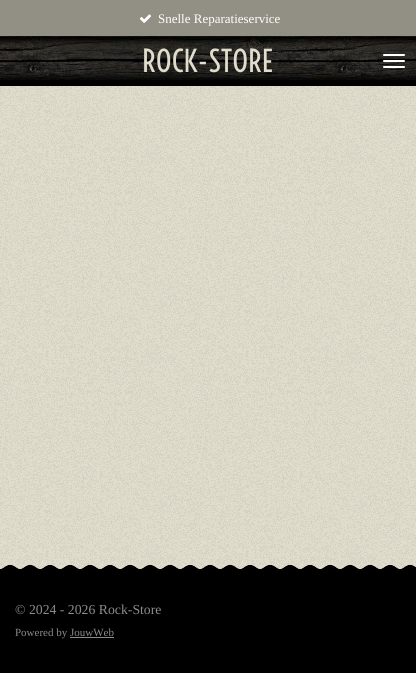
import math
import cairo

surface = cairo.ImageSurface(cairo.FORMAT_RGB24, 416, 673)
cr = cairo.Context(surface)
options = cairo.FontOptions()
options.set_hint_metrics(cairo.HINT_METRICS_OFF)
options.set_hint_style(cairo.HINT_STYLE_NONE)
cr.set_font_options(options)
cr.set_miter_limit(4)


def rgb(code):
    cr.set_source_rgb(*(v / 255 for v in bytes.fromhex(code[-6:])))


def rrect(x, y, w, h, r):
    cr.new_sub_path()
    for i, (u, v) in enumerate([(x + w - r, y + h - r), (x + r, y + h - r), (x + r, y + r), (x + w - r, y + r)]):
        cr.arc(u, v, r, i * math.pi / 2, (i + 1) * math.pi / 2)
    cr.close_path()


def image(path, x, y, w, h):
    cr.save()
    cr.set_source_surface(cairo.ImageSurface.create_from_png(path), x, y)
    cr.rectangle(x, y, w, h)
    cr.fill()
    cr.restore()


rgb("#e1ddcd")
cr.paint()
rgb("#929085")
cr.rectangle(0, 0, 416, 36)
cr.fill()
image("img/1.png", 139, 14, 12, 9)
rgb("#000000")
cr.rectangle(0, 80, 416, 6)
cr.fill()
image("img/2.png", 0, 36, 416, 44)
rgb("#ffffff")
rrect(383, 60, 22, 2, 1)
cr.fill()
rrect(383, 54, 22, 2, 1)
cr.fill()
rrect(383, 66, 22, 2, 1)
cr.fill()
rgb("#000000")
cr.rectangle(0, 569, 416, 104)
cr.fill()
image("img/4.png", 0, 86, 416, 483)
image("img/3.png", 1, 564, 415, 5)
rgb("#8c8c8c")
cr.rectangle(70, 637, 44, 1)
cr.fill()
cr.select_font_face("Liberation Serif")
cr.set_font_size(13)
rgb("#ffffff")
cr.move_to(158, 23)
cr.show_text("Snelle Reparatieservice")
cr.select_font_face("Voltaire")
cr.set_font_size(30)
rgb("#e1ddcd")
cr.move_to(142, 72)
cr.show_text("ROCK-STORE")
cr.select_font_face("Liberation Serif")
cr.set_font_size(13.75)
rgb("#8c8c8c")
cr.move_to(15, 614)
cr.show_text("© 2024 - 2026 Rock-Store")
cr.set_font_size(11)
cr.move_to(15, 636)
cr.show_text("Powered by JouwWeb")
surface.write_to_png("page.png")
